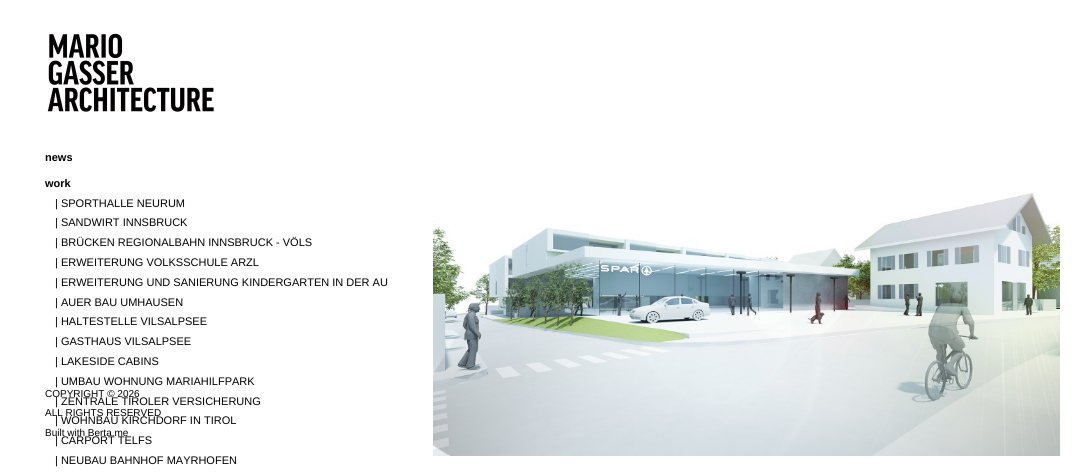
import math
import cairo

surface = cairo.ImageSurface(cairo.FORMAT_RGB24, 1077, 473)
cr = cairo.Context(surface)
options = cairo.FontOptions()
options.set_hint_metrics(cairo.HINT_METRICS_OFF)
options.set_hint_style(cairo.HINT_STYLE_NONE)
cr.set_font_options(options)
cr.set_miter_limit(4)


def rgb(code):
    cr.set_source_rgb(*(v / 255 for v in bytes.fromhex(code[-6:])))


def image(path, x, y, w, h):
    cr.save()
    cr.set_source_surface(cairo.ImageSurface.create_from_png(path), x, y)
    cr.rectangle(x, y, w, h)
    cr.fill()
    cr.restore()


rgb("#ffffff")
cr.paint()
image("img/1.png", 47, 33, 167, 80)
image("img/2.png", 433, 193, 627, 263)
cr.select_font_face("Liberation Sans", cairo.FONT_SLANT_NORMAL, cairo.FONT_WEIGHT_BOLD)
cr.set_font_size(11)
rgb("#000000")
cr.move_to(45, 161)
cr.show_text("news")
cr.move_to(45, 187)
cr.show_text("work")
cr.select_font_face("Liberation Sans")
for x, y, s in [
    (55, 207, "| SPORTHALLE NEURUM"),
    (55, 226, "| SANDWIRT INNSBRUCK"),
    (55, 246, "| BRÜCKEN REGIONALBAHN INNSBRUCK - VÖLS"),
    (55, 266, "| ERWEITERUNG VOLKSSCHULE ARZL"),
    (55, 286, "| ERWEITERUNG UND SANIERUNG KINDERGARTEN IN DER AU"),
    (55, 306, "| AUER BAU UMHAUSEN"),
    (55, 325, "| HALTESTELLE VILSALPSEE"),
    (55, 345, "| GASTHAUS VILSALPSEE"),
    (55, 365, "| LAKESIDE CABINS"),
    (55, 385, "| UMBAU WOHNUNG MARIAHILFPARK"),
    (55, 405, "| ZENTRALE TIROLER VERSICHERUNG"),
    (55, 424, "| WOHNBAU KIRCHDORF IN TIROL"),
    (55, 444, "| CARPORT TELFS"),
    (55, 464, "| NEUBAU BAHNHOF MAYRHOFEN"),
]:
    cr.move_to(x, y)
    cr.show_text(s)
cr.set_font_size(10)
for x, y, s in [
    (45, 397, "COPYRIGHT © 2026"),
    (45, 416, "ALL RIGHTS RESERVED"),
    (45, 436, "Built with Berta.me"),
]:
    cr.move_to(x, y)
    cr.show_text(s)
surface.write_to_png("page.png")
